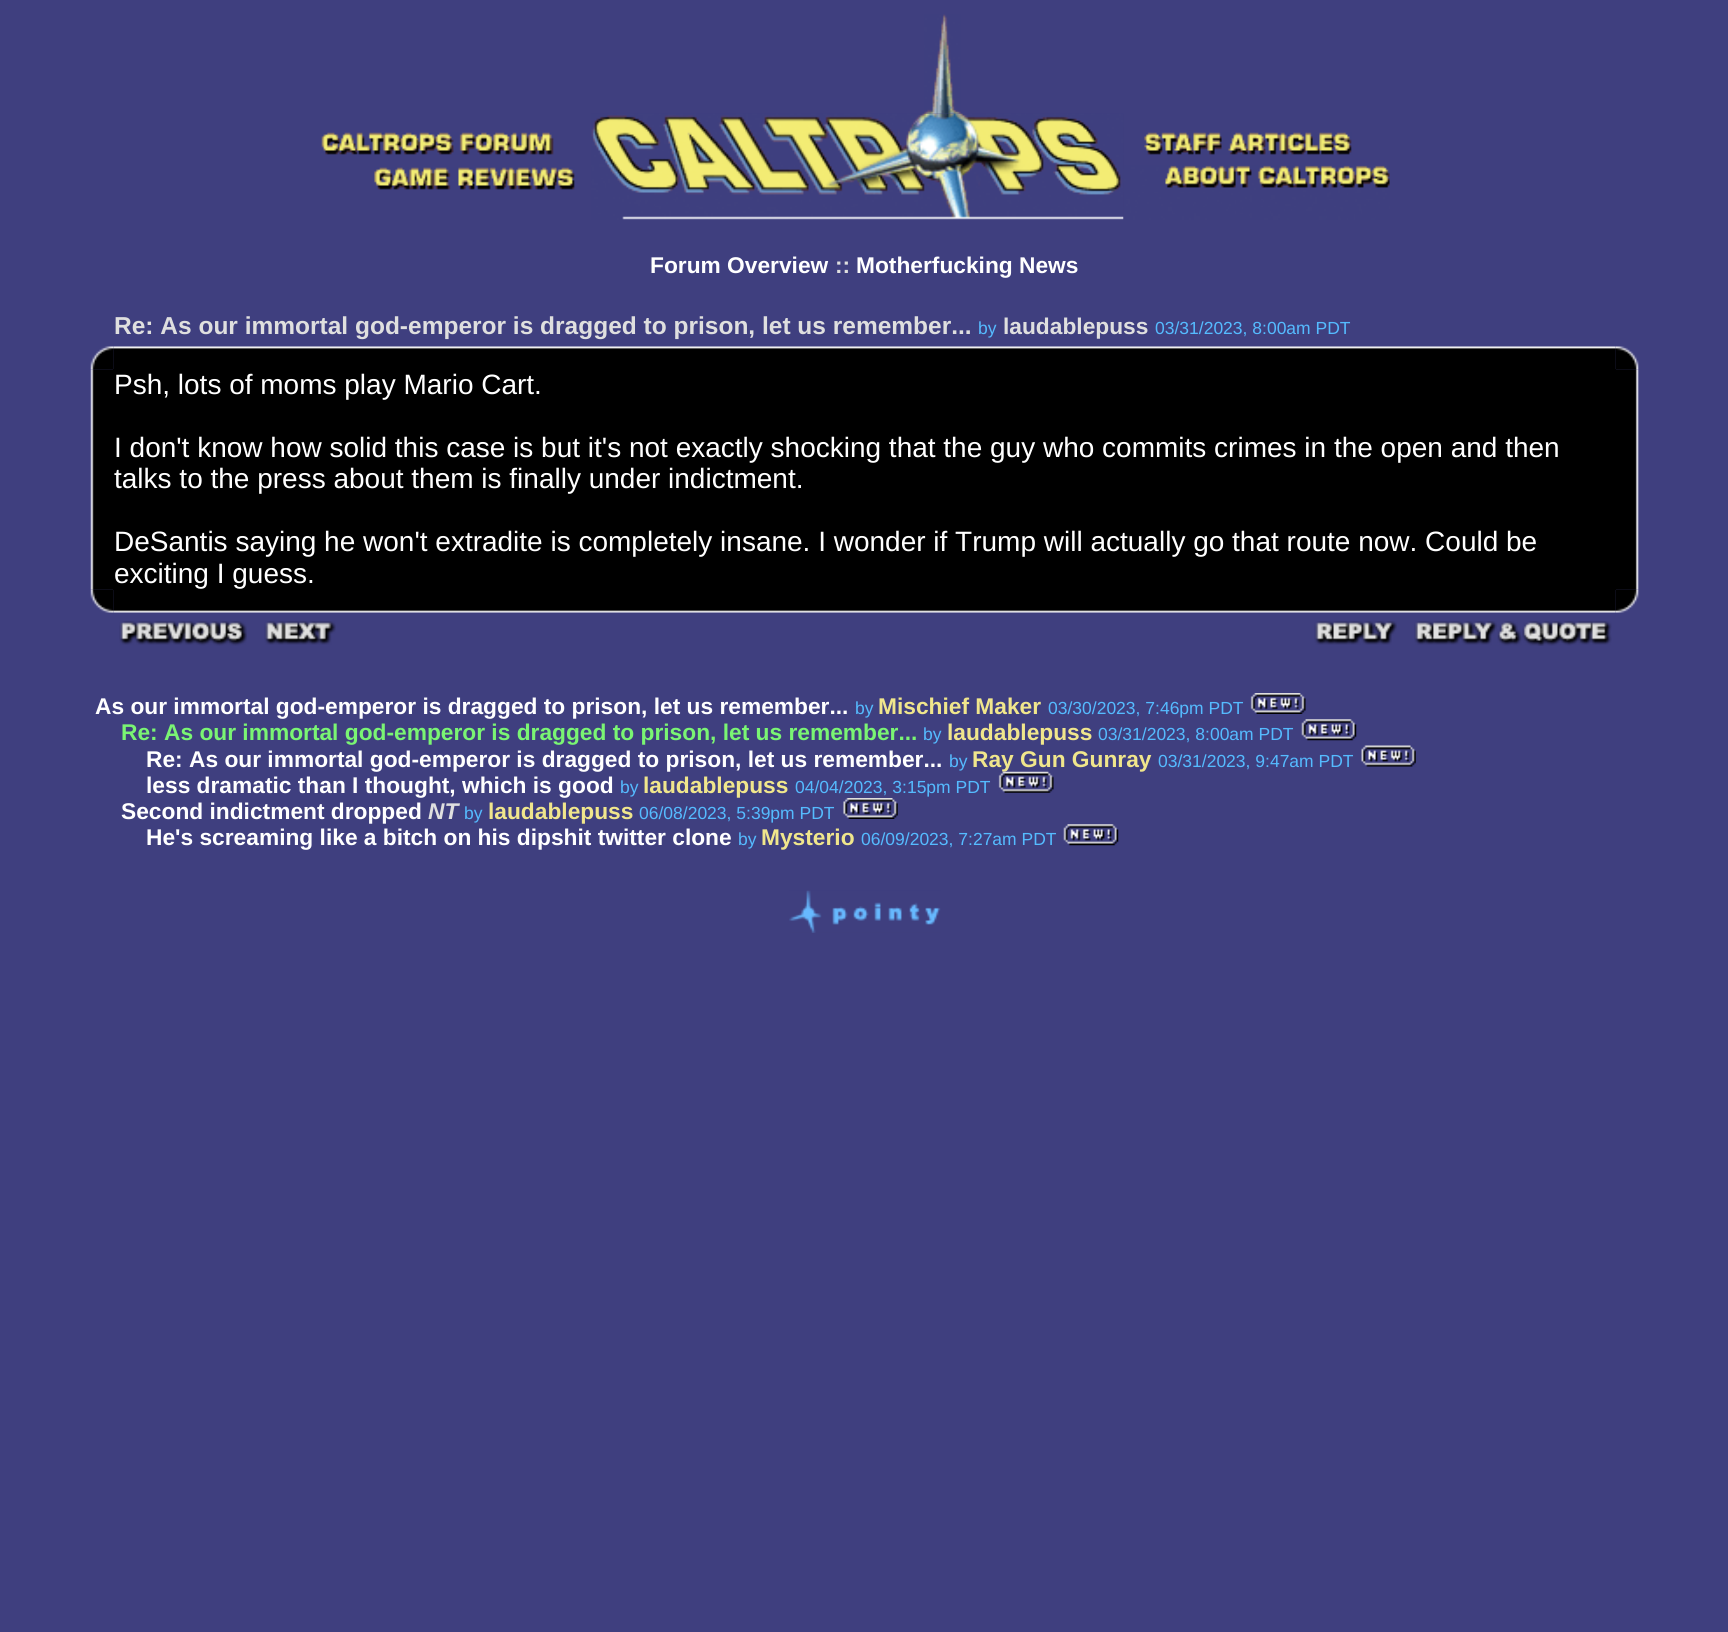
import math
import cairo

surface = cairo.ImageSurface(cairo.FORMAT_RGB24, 1728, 1632)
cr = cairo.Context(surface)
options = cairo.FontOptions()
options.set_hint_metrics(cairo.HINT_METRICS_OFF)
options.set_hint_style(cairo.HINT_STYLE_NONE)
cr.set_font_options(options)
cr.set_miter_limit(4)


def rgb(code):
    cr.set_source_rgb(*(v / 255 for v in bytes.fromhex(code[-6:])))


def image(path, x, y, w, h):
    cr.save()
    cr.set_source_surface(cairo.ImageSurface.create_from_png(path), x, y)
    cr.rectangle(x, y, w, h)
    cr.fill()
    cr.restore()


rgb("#3f3f7f")
cr.paint()
image("img/1.png", 924, 14, 37, 100)
image("img/2.png", 321, 132, 233, 23)
image("img/3.png", 591, 113, 533, 107)
image("img/4.png", 1144, 132, 208, 23)
image("img/5.png", 374, 167, 201, 23)
image("img/6.png", 1123, 165, 267, 55)
image("img/8.png", 113, 346, 1503, 23)
image("img/10.png", 90, 369, 23, 221)
rgb("#000000")
cr.rectangle(113, 369, 1503, 221)
cr.fill()
image("img/7.png", 90, 346, 24, 24)
image("img/11.png", 1616, 369, 23, 221)
image("img/9.png", 1615, 346, 24, 24)
image("img/13.png", 113, 590, 1503, 23)
image("img/12.png", 90, 589, 24, 24)
image("img/14.png", 1615, 589, 24, 24)
image("img/15.png", 119, 621, 128, 25)
image("img/16.png", 264, 621, 72, 24)
image("img/17.png", 1314, 621, 83, 24)
image("img/18.png", 1414, 621, 198, 25)
image("img/19.png", 1250, 693, 56, 21)
image("img/20.png", 1301, 719, 56, 22)
image("img/21.png", 1361, 745, 55, 22)
image("img/23.png", 843, 798, 55, 21)
image("img/24.png", 1063, 824, 56, 22)
image("img/25.png", 789, 890, 152, 43)
cr.select_font_face("Liberation Sans", cairo.FONT_SLANT_NORMAL, cairo.FONT_WEIGHT_BOLD)
cr.set_font_size(22.75)
rgb("#ffffff")
cr.move_to(650, 273)
cr.show_text("Forum Overview")
rgb("#dfdfdf")
cr.move_to(835, 273)
cr.show_text("::")
rgb("#ffffff")
cr.move_to(856, 273)
cr.show_text("Motherfucking News")
cr.set_font_size(24.5)
rgb("#dfdfdf")
cr.move_to(114, 334)
cr.show_text("Re: As our immortal god-emperor is dragged to prison, let us remember...")
cr.select_font_face("Liberation Sans")
cr.set_font_size(17.5)
rgb("#55bbff")
cr.move_to(978, 334)
cr.show_text("by")
cr.select_font_face("Liberation Sans", cairo.FONT_SLANT_NORMAL, cairo.FONT_WEIGHT_BOLD)
cr.set_font_size(22.75)
rgb("#dfdfdf")
cr.move_to(1003, 334)
cr.show_text("laudablepuss")
cr.select_font_face("Liberation Sans")
cr.set_font_size(17.5)
rgb("#55bbff")
cr.move_to(1155, 334)
cr.show_text("03/31/2023, 8:00am PDT")
cr.set_font_size(28)
rgb("#ffffff")
for x, y, s in [
    (114, 394, "Psh, lots of moms play Mario Cart."),
    (114, 457, "I don't know how solid this case is but it's not exactly shocking that the guy who commits crimes in the open and then"),
    (114, 488, "talks to the press about them is finally under indictment."),
    (114, 551, "DeSantis saying he won't extradite is completely insane. I wonder if Trump will actually go that route now. Could be"),
    (114, 583, "exciting I guess."),
]:
    cr.move_to(x, y)
    cr.show_text(s)
cr.select_font_face("Liberation Sans", cairo.FONT_SLANT_NORMAL, cairo.FONT_WEIGHT_BOLD)
cr.set_font_size(22.75)
cr.move_to(95, 714)
cr.show_text("As our immortal god-emperor is dragged to prison, let us remember...")
cr.select_font_face("Liberation Sans")
cr.set_font_size(17.5)
rgb("#55bbff")
cr.move_to(855, 714)
cr.show_text("by")
cr.select_font_face("Liberation Sans", cairo.FONT_SLANT_NORMAL, cairo.FONT_WEIGHT_BOLD)
cr.set_font_size(22.75)
rgb("#f0e68c")
cr.move_to(878, 714)
cr.show_text("Mischief Maker")
cr.select_font_face("Liberation Sans")
cr.set_font_size(17.5)
rgb("#55bbff")
cr.move_to(1048, 714)
cr.show_text("03/30/2023, 7:46pm PDT")
cr.select_font_face("Liberation Sans", cairo.FONT_SLANT_NORMAL, cairo.FONT_WEIGHT_BOLD)
cr.set_font_size(22.75)
rgb("#7af573")
cr.move_to(121, 740)
cr.show_text("Re: As our immortal god-emperor is dragged to prison, let us remember...")
cr.select_font_face("Liberation Sans")
cr.set_font_size(17.5)
rgb("#55bbff")
cr.move_to(923, 740)
cr.show_text("by")
cr.select_font_face("Liberation Sans", cairo.FONT_SLANT_NORMAL, cairo.FONT_WEIGHT_BOLD)
cr.set_font_size(22.75)
rgb("#f0e68c")
cr.move_to(947, 740)
cr.show_text("laudablepuss")
cr.select_font_face("Liberation Sans")
cr.set_font_size(17.5)
rgb("#55bbff")
cr.move_to(1098, 740)
cr.show_text("03/31/2023, 8:00am PDT")
cr.select_font_face("Liberation Sans", cairo.FONT_SLANT_NORMAL, cairo.FONT_WEIGHT_BOLD)
cr.set_font_size(22.75)
rgb("#ffffff")
cr.move_to(146, 767)
cr.show_text("Re: As our immortal god-emperor is dragged to prison, let us remember...")
cr.select_font_face("Liberation Sans")
cr.set_font_size(17.5)
rgb("#55bbff")
cr.move_to(949, 767)
cr.show_text("by")
cr.select_font_face("Liberation Sans", cairo.FONT_SLANT_NORMAL, cairo.FONT_WEIGHT_BOLD)
cr.set_font_size(22.75)
rgb("#f0e68c")
cr.move_to(972, 767)
cr.show_text("Ray Gun Gunray")
cr.select_font_face("Liberation Sans")
cr.set_font_size(17.5)
rgb("#55bbff")
cr.move_to(1158, 767)
cr.show_text("03/31/2023, 9:47am PDT")
cr.select_font_face("Liberation Sans", cairo.FONT_SLANT_NORMAL, cairo.FONT_WEIGHT_BOLD)
cr.set_font_size(22.75)
rgb("#ffffff")
cr.move_to(146, 793)
cr.show_text("less dramatic than I thought, which is good")
cr.select_font_face("Liberation Sans")
cr.set_font_size(17.5)
rgb("#55bbff")
cr.move_to(620, 793)
cr.show_text("by")
cr.select_font_face("Liberation Sans", cairo.FONT_SLANT_NORMAL, cairo.FONT_WEIGHT_BOLD)
cr.set_font_size(22.75)
rgb("#f0e68c")
cr.move_to(643, 793)
cr.show_text("laudablepuss")
cr.select_font_face("Liberation Sans")
cr.set_font_size(17.5)
rgb("#55bbff")
cr.move_to(795, 793)
cr.show_text("04/04/2023, 3:15pm PDT")
image("img/22.png", 998, 771, 56, 22)
cr.select_font_face("Liberation Sans", cairo.FONT_SLANT_NORMAL, cairo.FONT_WEIGHT_BOLD)
cr.set_font_size(22.75)
rgb("#ffffff")
cr.move_to(121, 819)
cr.show_text("Second indictment dropped")
cr.select_font_face("Liberation Sans", cairo.FONT_SLANT_ITALIC, cairo.FONT_WEIGHT_BOLD)
rgb("#dfdfdf")
cr.move_to(428, 819)
cr.show_text("NT")
cr.select_font_face("Liberation Sans")
cr.set_font_size(17.5)
rgb("#55bbff")
cr.move_to(464, 819)
cr.show_text("by")
cr.select_font_face("Liberation Sans", cairo.FONT_SLANT_NORMAL, cairo.FONT_WEIGHT_BOLD)
cr.set_font_size(22.75)
rgb("#f0e68c")
cr.move_to(488, 819)
cr.show_text("laudablepuss")
cr.select_font_face("Liberation Sans")
cr.set_font_size(17.5)
rgb("#55bbff")
cr.move_to(639, 819)
cr.show_text("06/08/2023, 5:39pm PDT")
cr.select_font_face("Liberation Sans", cairo.FONT_SLANT_NORMAL, cairo.FONT_WEIGHT_BOLD)
cr.set_font_size(22.75)
rgb("#ffffff")
cr.move_to(146, 845)
cr.show_text("He's screaming like a bitch on his dipshit twitter clone")
cr.select_font_face("Liberation Sans")
cr.set_font_size(17.5)
rgb("#55bbff")
cr.move_to(738, 845)
cr.show_text("by")
cr.select_font_face("Liberation Sans", cairo.FONT_SLANT_NORMAL, cairo.FONT_WEIGHT_BOLD)
cr.set_font_size(22.75)
rgb("#f0e68c")
cr.move_to(761, 845)
cr.show_text("Mysterio")
cr.select_font_face("Liberation Sans")
cr.set_font_size(17.5)
rgb("#55bbff")
cr.move_to(861, 845)
cr.show_text("06/09/2023, 7:27am PDT")
surface.write_to_png("page.png")
